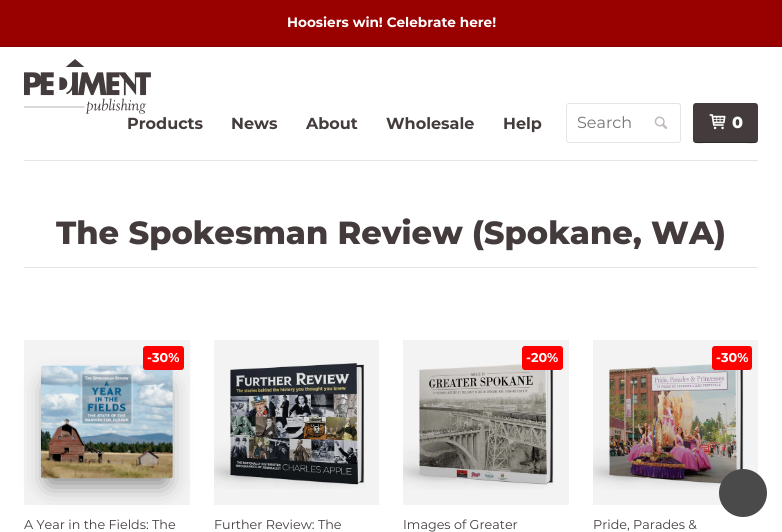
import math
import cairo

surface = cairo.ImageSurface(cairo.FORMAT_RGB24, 782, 532)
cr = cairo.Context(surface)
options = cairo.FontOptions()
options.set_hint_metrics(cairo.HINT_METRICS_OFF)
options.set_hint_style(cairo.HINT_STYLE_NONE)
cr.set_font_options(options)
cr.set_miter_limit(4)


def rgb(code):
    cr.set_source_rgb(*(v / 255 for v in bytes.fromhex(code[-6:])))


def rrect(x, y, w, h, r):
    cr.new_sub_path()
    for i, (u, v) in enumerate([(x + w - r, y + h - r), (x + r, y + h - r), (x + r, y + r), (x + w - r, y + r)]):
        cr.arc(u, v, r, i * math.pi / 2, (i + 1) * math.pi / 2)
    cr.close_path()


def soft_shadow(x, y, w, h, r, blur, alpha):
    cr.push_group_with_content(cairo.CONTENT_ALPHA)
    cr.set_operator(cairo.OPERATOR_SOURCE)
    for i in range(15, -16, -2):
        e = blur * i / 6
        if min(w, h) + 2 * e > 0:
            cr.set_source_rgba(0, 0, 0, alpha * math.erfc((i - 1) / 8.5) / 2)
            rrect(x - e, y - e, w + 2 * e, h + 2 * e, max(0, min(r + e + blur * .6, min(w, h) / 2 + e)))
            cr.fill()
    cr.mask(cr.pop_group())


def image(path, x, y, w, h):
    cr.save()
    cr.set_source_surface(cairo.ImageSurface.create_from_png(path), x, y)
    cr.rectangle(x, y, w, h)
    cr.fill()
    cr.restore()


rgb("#ffffff")
cr.paint()
rgb("#990000")
cr.rectangle(0, 0, 782, 46)
cr.fill()
rgb("#8a0000")
cr.rectangle(0, 46, 782, 1)
cr.fill()
image("img/1.png", 24, 59, 127, 55)
rrect(566.5, 103.5, 114, 39, 2.5)
rgb("#e5e5e5")
cr.set_line_width(1)
cr.stroke()
image("img/2.png", 654, 116, 14, 13)
rgb("#443c3c")
rrect(693, 103, 65, 40, 3)
cr.fill()
cr.set_source_rgba(0, 0, 0, 0.3)
cr.new_path()
cr.move_to(693, 139)
cr.curve_to(693, 145, 701, 143, 706, 143)
cr.line_to(745, 143)
cr.curve_to(750, 143, 758, 145, 758, 139)
cr.curve_to(758, 141, 757, 142, 755, 142)
cr.line_to(696, 142)
cr.curve_to(694, 142, 693, 141, 693, 139)
cr.close_path()
cr.fill()
image("img/3.png", 709, 114, 17, 16)
rgb("#e5e5e5")
cr.rectangle(24, 160, 734, 1)
cr.fill()
cr.rectangle(24, 267, 734, 1)
cr.fill()
rgb("#000000")
soft_shadow(49, 386, 116, 97, 0, 12, 0.5)
image("img/4.png", 40, 365, 133, 114)
cr.set_source_rgba(0, 0, 0, 0.05)
cr.rectangle(24, 340, 166, 165)
cr.fill()
rgb("#ff0000")
rrect(143, 346, 41, 24, 3)
cr.fill()
image("img/5.png", 214, 363, 152, 126)
cr.set_source_rgba(0, 0, 0, 0.05)
cr.rectangle(214, 340, 165, 165)
cr.fill()
image("img/6.png", 403, 363, 151, 127)
cr.rectangle(403, 340, 166, 165)
cr.fill()
rgb("#ff0000")
rrect(522, 346, 41, 24, 3)
cr.fill()
image("img/7.png", 593, 363, 152, 127)
cr.set_source_rgba(0, 0, 0, 0.05)
cr.rectangle(593, 340, 165, 165)
cr.fill()
rgb("#ff0000")
rrect(712, 346, 40, 24, 3)
cr.fill()
rgb("#4a4a4a")
cr.arc(743, 493, 24, 0, 2 * math.pi)
cr.fill()
cr.select_font_face("Montserrat", cairo.FONT_SLANT_NORMAL, cairo.FONT_WEIGHT_BOLD)
cr.set_font_size(13.6)
rgb("#ffffff")
cr.move_to(287, 27)
cr.show_text("Hoosiers win! Celebrate here!")
cr.set_font_size(16)
rgb("#443c3c")
for x, y, s in [
    (127, 129, "Products"),
    (231, 129, "News"),
    (306, 129, "About"),
    (386, 129, "Wholesale"),
    (503, 129, "Help"),
]:
    cr.move_to(x, y)
    cr.show_text(s)
cr.select_font_face("Montserrat")
rgb("#757575")
cr.move_to(577, 128)
cr.show_text("Search")
cr.select_font_face("Montserrat ExtraBold")
rgb("#ffffff")
cr.move_to(732, 128)
cr.show_text("0")
cr.set_font_size(32)
rgb("#443c3c")
cr.move_to(56, 244)
cr.show_text("The Spokesman Review (Spokane, WA)")
cr.select_font_face("Montserrat", cairo.FONT_SLANT_NORMAL, cairo.FONT_WEIGHT_BOLD)
cr.set_font_size(12.75)
rgb("#ffffff")
cr.move_to(147, 362)
cr.show_text("-30%")
cr.select_font_face("Montserrat")
rgb("#443c3c")
cr.move_to(24, 529)
cr.show_text("A Year in the Fields: The")
cr.move_to(214, 529)
cr.show_text("Further Review: The")
cr.select_font_face("Montserrat", cairo.FONT_SLANT_NORMAL, cairo.FONT_WEIGHT_BOLD)
rgb("#ffffff")
cr.move_to(526, 362)
cr.show_text("-20%")
cr.select_font_face("Montserrat")
rgb("#443c3c")
cr.move_to(403, 529)
cr.show_text("Images of Greater")
cr.select_font_face("Montserrat", cairo.FONT_SLANT_NORMAL, cairo.FONT_WEIGHT_BOLD)
rgb("#ffffff")
cr.move_to(716, 362)
cr.show_text("-30%")
cr.select_font_face("Montserrat")
rgb("#443c3c")
cr.move_to(593, 529)
cr.show_text("Pride, Parades &")
surface.write_to_png("page.png")
